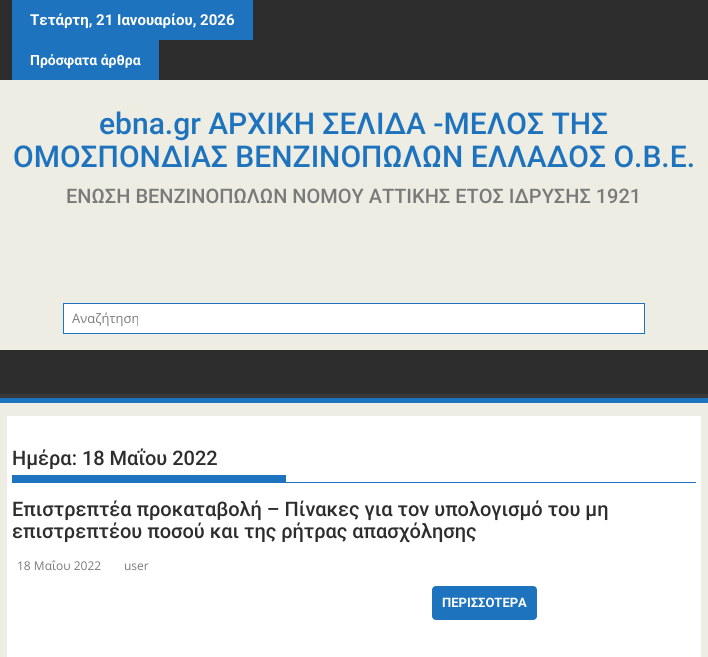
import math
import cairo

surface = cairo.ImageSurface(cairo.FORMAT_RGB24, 708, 657)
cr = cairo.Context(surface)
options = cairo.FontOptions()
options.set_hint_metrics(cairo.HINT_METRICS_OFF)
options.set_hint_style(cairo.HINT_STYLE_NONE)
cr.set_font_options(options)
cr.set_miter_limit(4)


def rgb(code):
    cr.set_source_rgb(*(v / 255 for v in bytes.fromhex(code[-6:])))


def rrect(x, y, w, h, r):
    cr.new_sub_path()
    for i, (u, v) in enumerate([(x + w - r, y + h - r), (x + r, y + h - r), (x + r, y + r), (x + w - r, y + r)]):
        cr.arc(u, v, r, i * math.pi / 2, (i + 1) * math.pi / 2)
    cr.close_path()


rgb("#edede3")
cr.paint()
for x, y, w, h, color in [
    (0, 0, 708, 80, "#2d2d2d"),
    (12, 0, 241, 40, "#1e73be"),
    (12, 40, 147, 40, "#1e73be"),
]:
    rgb(color)
    cr.rectangle(x, y, w, h)
    cr.fill()
rgb("#ffffff")
cr.rectangle(63.5, 303.5, 581, 30)
cr.fill_preserve()
rgb("#1e73be")
cr.set_line_width(1)
cr.stroke()
rgb("#2d2d2d")
cr.rectangle(0, 350, 708, 44)
cr.fill()
cr.save()
cr.rectangle(0, 350, 708, 48)
cr.clip()
rgb("#393939")
cr.set_fill_rule(cairo.FILL_RULE_EVEN_ODD)
cr.new_path()
cr.move_to(-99, 251)
cr.line_to(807, 251)
cr.line_to(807, 497)
cr.line_to(-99, 497)
cr.close_path()
cr.move_to(-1, 344)
cr.line_to(707, 344)
cr.curve_to(708, 344, 708, 344, 708, 345)
cr.line_to(708, 393)
cr.curve_to(708, 394, 708, 394, 707, 394)
cr.line_to(-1, 394)
cr.curve_to(-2, 394, -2, 394, -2, 393)
cr.line_to(-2, 345)
cr.curve_to(-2, 344, -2, 344, -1, 344)
cr.close_path()
cr.fill()
cr.restore()
for x, y, w, h, color in [
    (0, 398, 708, 5, "#1e73be"),
    (7, 416, 694, 241, "#ffffff"),
    (12, 482, 684, 1, "#1e73be"),
    (12, 475, 274, 7, "#1e73be"),
]:
    rgb(color)
    cr.rectangle(x, y, w, h)
    cr.fill()
rrect(432, 586, 105, 34, 4)
cr.fill()
cr.select_font_face("Roboto", cairo.FONT_SLANT_NORMAL, cairo.FONT_WEIGHT_BOLD)
cr.set_font_size(15)
rgb("#ffffff")
cr.move_to(30, 25)
cr.show_text("Τετάρτη, 21 Ιανουαρίου, 2026")
cr.set_font_size(14)
cr.move_to(30, 65)
cr.show_text("Πρόσφατα άρθρα")
cr.select_font_face("Roboto Medium")
cr.set_font_size(30)
rgb("#1e73be")
cr.move_to(99, 134)
cr.show_text("ebna.gr ΑΡΧΙΚΗ ΣΕΛΙΔΑ -ΜΕΛΟΣ ΤΗΣ")
cr.move_to(13, 167)
cr.show_text("ΟΜΟΣΠΟΝΔΙΑΣ ΒΕΝΖΙΝΟΠΩΛΩΝ ΕΛΛΑΔΟΣ Ο.Β.Ε.")
cr.set_font_size(20)
rgb("#7a7a7a")
cr.move_to(66, 203)
cr.show_text("ΕΝΩΣΗ ΒΕΝΖΙΝΟΠΩΛΩΝ ΝΟΜΟΥ ΑΤΤΙΚΗΣ ΕΤΟΣ ΙΔΡΥΣΗΣ 1921")
cr.select_font_face("Open Sans")
cr.set_font_size(13)
cr.move_to(72, 323)
cr.show_text("Αναζήτηση")
cr.select_font_face("Roboto Medium")
cr.set_font_size(20)
rgb("#2d2d2d")
for x, y, s in [
    (12, 465, "Ημέρα: 18 Μαΐου 2022"),
    (12, 516, "Επιστρεπτέα προκαταβολή – Πίνακες για τον υπολογισμό του μη"),
    (12, 538, "επιστρεπτέου ποσού και της ρήτρας απασχόλησης"),
]:
    cr.move_to(x, y)
    cr.show_text(s)
cr.select_font_face("Open Sans")
cr.set_font_size(12)
rgb("#7a7a7a")
cr.move_to(17, 570)
cr.show_text("18 Μαΐου 2022")
cr.move_to(124, 570)
cr.show_text("user")
cr.select_font_face("Roboto", cairo.FONT_SLANT_NORMAL, cairo.FONT_WEIGHT_BOLD)
cr.set_font_size(13)
rgb("#ffffff")
cr.move_to(442, 607)
cr.show_text("ΠΕΡΙΣΣΟΤΕΡΑ")
surface.write_to_png("page.png")
